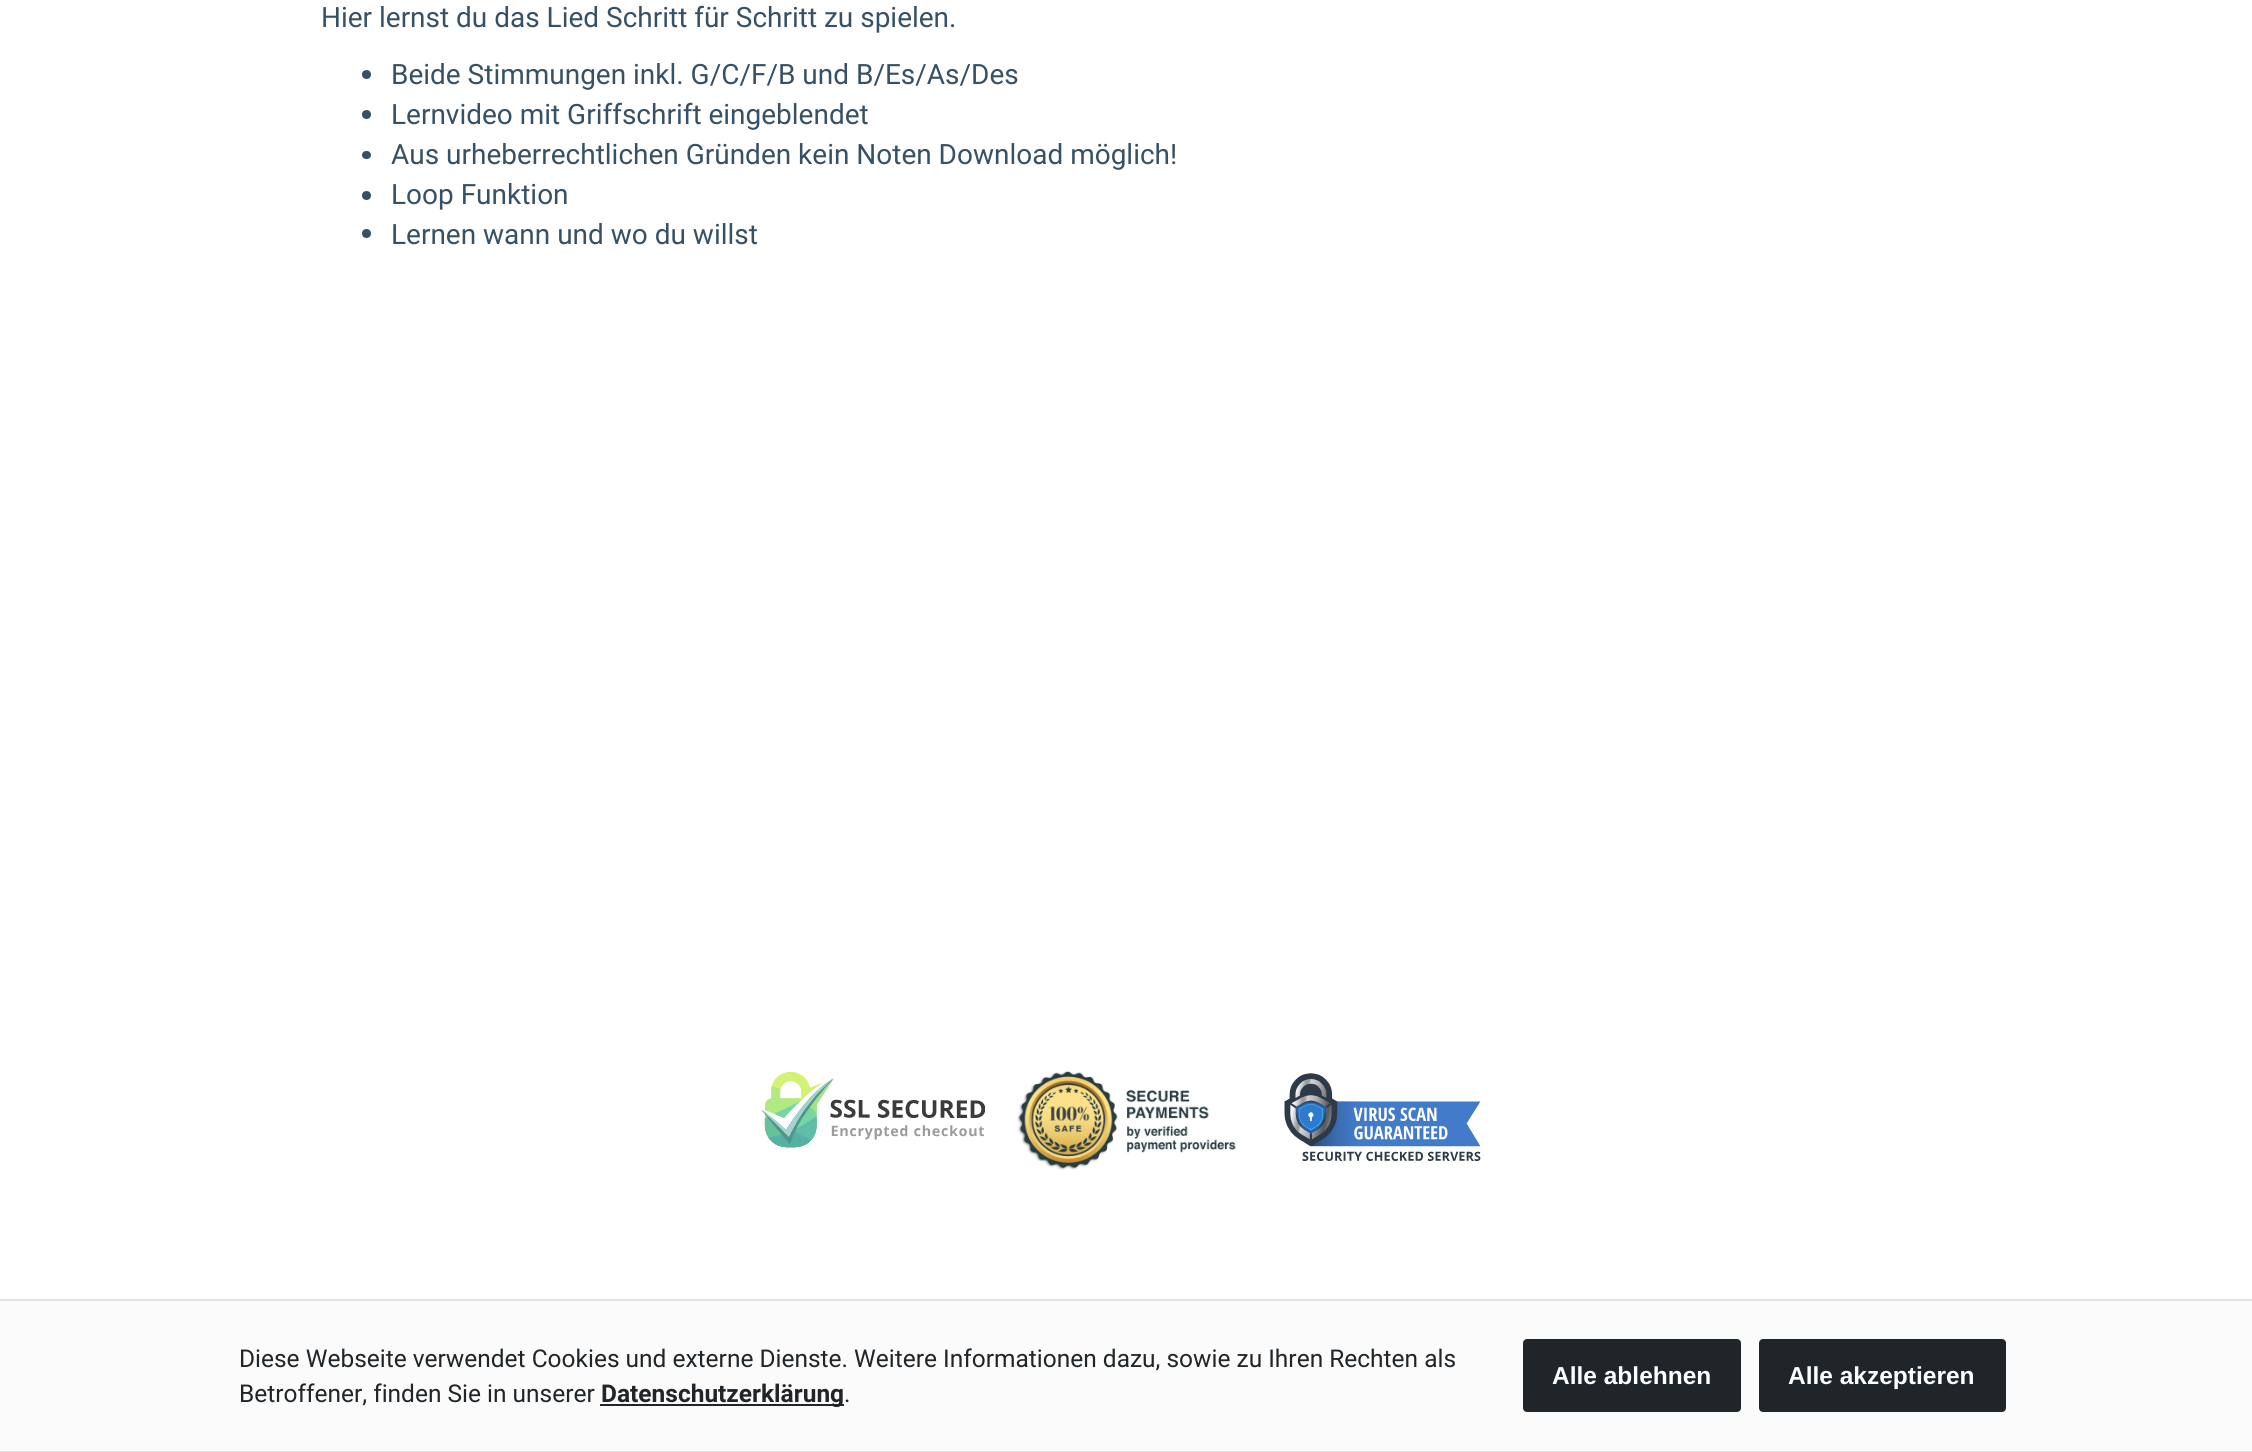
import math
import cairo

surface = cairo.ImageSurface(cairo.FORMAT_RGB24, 2252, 1452)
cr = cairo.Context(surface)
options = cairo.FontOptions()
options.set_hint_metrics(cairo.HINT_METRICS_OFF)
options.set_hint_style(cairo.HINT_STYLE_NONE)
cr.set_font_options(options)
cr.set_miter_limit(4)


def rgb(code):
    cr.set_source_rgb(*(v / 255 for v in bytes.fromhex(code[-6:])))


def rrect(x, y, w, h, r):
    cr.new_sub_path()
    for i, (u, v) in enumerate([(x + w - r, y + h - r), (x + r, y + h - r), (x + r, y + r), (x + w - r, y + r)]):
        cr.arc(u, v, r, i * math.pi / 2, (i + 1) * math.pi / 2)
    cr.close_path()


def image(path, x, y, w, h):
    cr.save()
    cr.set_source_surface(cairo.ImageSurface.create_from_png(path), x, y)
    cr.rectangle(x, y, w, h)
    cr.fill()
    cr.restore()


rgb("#ffffff")
cr.paint()
rgb("#365165")
cr.arc(366.5, 74.5, 4.5, 0, 2 * math.pi)
cr.fill()
cr.arc(366.5, 114.5, 4.5, 0, 2 * math.pi)
cr.fill()
rrect(362, 151, 9, 8, 4)
cr.fill()
cr.arc(366.5, 195.5, 4.5, 0, 2 * math.pi)
cr.fill()
cr.arc(366.5, 233.5, 4.5, 0, 2 * math.pi)
cr.fill()
image("img/1.png", 761, 1072, 224, 76)
image("img/2.png", 1017, 1071, 219, 99)
image("img/3.png", 1284, 1073, 197, 88)
for x, y, w, h, color in [
    (0, 1301, 2252, 150, "#fbfbfb"),
    (0, 1299, 2252, 2, "#e2e2e2"),
    (0, 1451, 2252, 1, "#e2e2e2"),
    (600, 1404, 244, 2, "#1f2529"),
]:
    rgb(color)
    cr.rectangle(x, y, w, h)
    cr.fill()
rrect(1524, 1340, 216, 71, 3)
cr.fill_preserve()
cr.stroke()
rrect(1760, 1340, 245, 71, 3)
cr.fill_preserve()
cr.stroke()
cr.select_font_face("Roboto")
cr.set_font_size(28)
rgb("#365165")
for x, y, s in [
    (321, 27, "Hier lernst du das Lied Schritt für Schritt zu spielen."),
    (391, 84, "Beide Stimmungen inkl. G/C/F/B und B/Es/As/Des"),
    (391, 124, "Lernvideo mit Griffschrift eingeblendet"),
    (391, 164, "Aus urheberrechtlichen Gründen kein Noten Download möglich!"),
    (391, 204, "Loop Funktion"),
    (391, 244, "Lernen wann und wo du willst"),
]:
    cr.move_to(x, y)
    cr.show_text(s)
cr.set_font_size(24.5)
rgb("#1f2529")
cr.move_to(239, 1367)
cr.show_text("Diese Webseite verwendet Cookies und externe Dienste. Weitere Informationen dazu, sowie zu Ihren Rechten als")
cr.move_to(239, 1402)
cr.show_text("Betroffener, finden Sie in unserer")
cr.select_font_face("Roboto", cairo.FONT_SLANT_NORMAL, cairo.FONT_WEIGHT_BOLD)
cr.move_to(601, 1402)
cr.show_text("Datenschutzerklärung")
cr.select_font_face("Roboto")
cr.move_to(844, 1402)
cr.show_text(".")
cr.select_font_face("Liberation Sans", cairo.FONT_SLANT_NORMAL, cairo.FONT_WEIGHT_BOLD)
rgb("#ffffff")
cr.move_to(1552, 1384)
cr.show_text("Alle ablehnen")
cr.move_to(1788, 1384)
cr.show_text("Alle akzeptieren")
surface.write_to_png("page.png")
